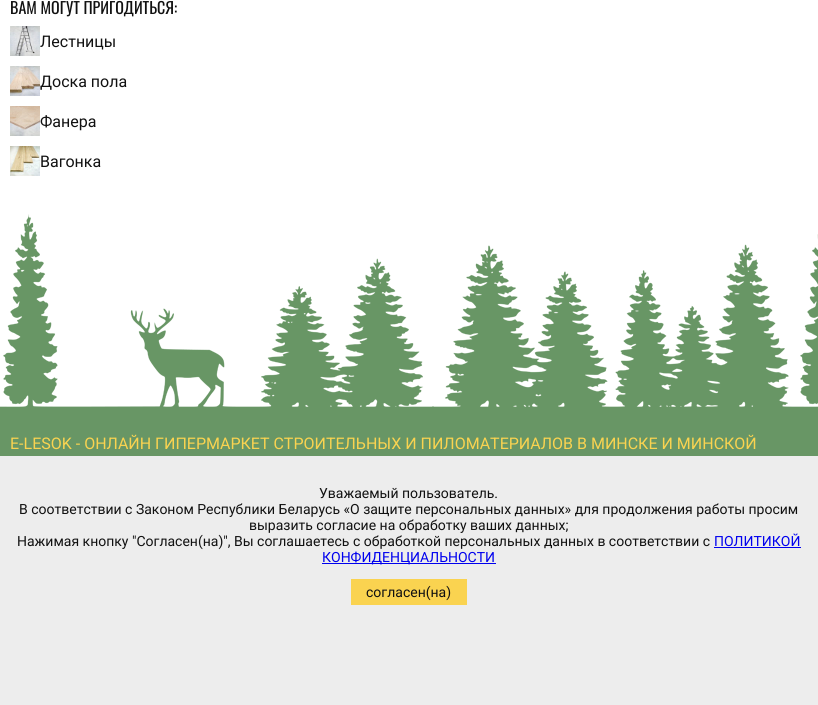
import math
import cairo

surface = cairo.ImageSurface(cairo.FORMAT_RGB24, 818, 705)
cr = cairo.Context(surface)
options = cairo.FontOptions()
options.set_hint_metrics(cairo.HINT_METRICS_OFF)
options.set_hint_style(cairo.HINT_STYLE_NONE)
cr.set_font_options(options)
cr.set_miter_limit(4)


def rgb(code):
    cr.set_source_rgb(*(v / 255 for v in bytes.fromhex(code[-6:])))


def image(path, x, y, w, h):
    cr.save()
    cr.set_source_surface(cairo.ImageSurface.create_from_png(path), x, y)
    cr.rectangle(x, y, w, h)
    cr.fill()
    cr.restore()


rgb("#ffffff")
cr.paint()
image("img/1.png", 10, 26, 30, 30)
image("img/2.png", 10, 66, 30, 30)
image("img/3.png", 10, 106, 30, 30)
image("img/4.png", 10, 146, 30, 30)
image("img/5.png", 0, 214, 818, 210)
for x, y, w, h, color in [
    (0, 424, 818, 32, "#689665"),
    (0, 456, 818, 249, "#ededed"),
    (714, 547, 87, 1, "#0000ee"),
    (322, 563, 174, 1, "#0000ee"),
    (351, 579, 116, 26, "#fad350"),
]:
    rgb(color)
    cr.rectangle(x, y, w, h)
    cr.fill()
cr.select_font_face("Oswald")
cr.set_font_size(16)
rgb("#111111")
cr.move_to(10, 14)
cr.show_text("ВАМ МОГУТ ПРИГОДИТЬСЯ:")
cr.select_font_face("Roboto")
for x, y, s in [
    (40, 47, "Лестницы"),
    (40, 87, "Доска пола"),
    (40, 127, "Фанера"),
    (40, 167, "Вагонка"),
]:
    cr.move_to(x, y)
    cr.show_text(s)
rgb("#fad350")
cr.move_to(10, 449)
cr.show_text("E-LESOK - ОНЛАЙН ГИПЕРМАРКЕТ СТРОИТЕЛЬНЫХ И ПИЛОМАТЕРИАЛОВ В МИНСКЕ И МИНСКОЙ")
cr.set_font_size(14)
rgb("#111111")
for x, y, s in [
    (319, 498, "Уважаемый пользователь."),
    (19, 514, "В соответствии с Законом Республики Беларусь «О защите персональных данных» для продолжения работы просим"),
    (249, 530, "выразить согласие на обработку ваших данных;"),
    (17, 546, "Нажимая кнопку \"Согласен(на)\", Вы соглашаетесь с обработкой персональных данных в соответствии с"),
]:
    cr.move_to(x, y)
    cr.show_text(s)
rgb("#0000ee")
cr.move_to(714, 546)
cr.show_text("ПОЛИТИКОЙ")
cr.move_to(322, 562)
cr.show_text("КОНФИДЕНЦИАЛЬНОСТИ")
rgb("#111111")
cr.move_to(366, 597)
cr.show_text("согласен(на)")
surface.write_to_png("page.png")
